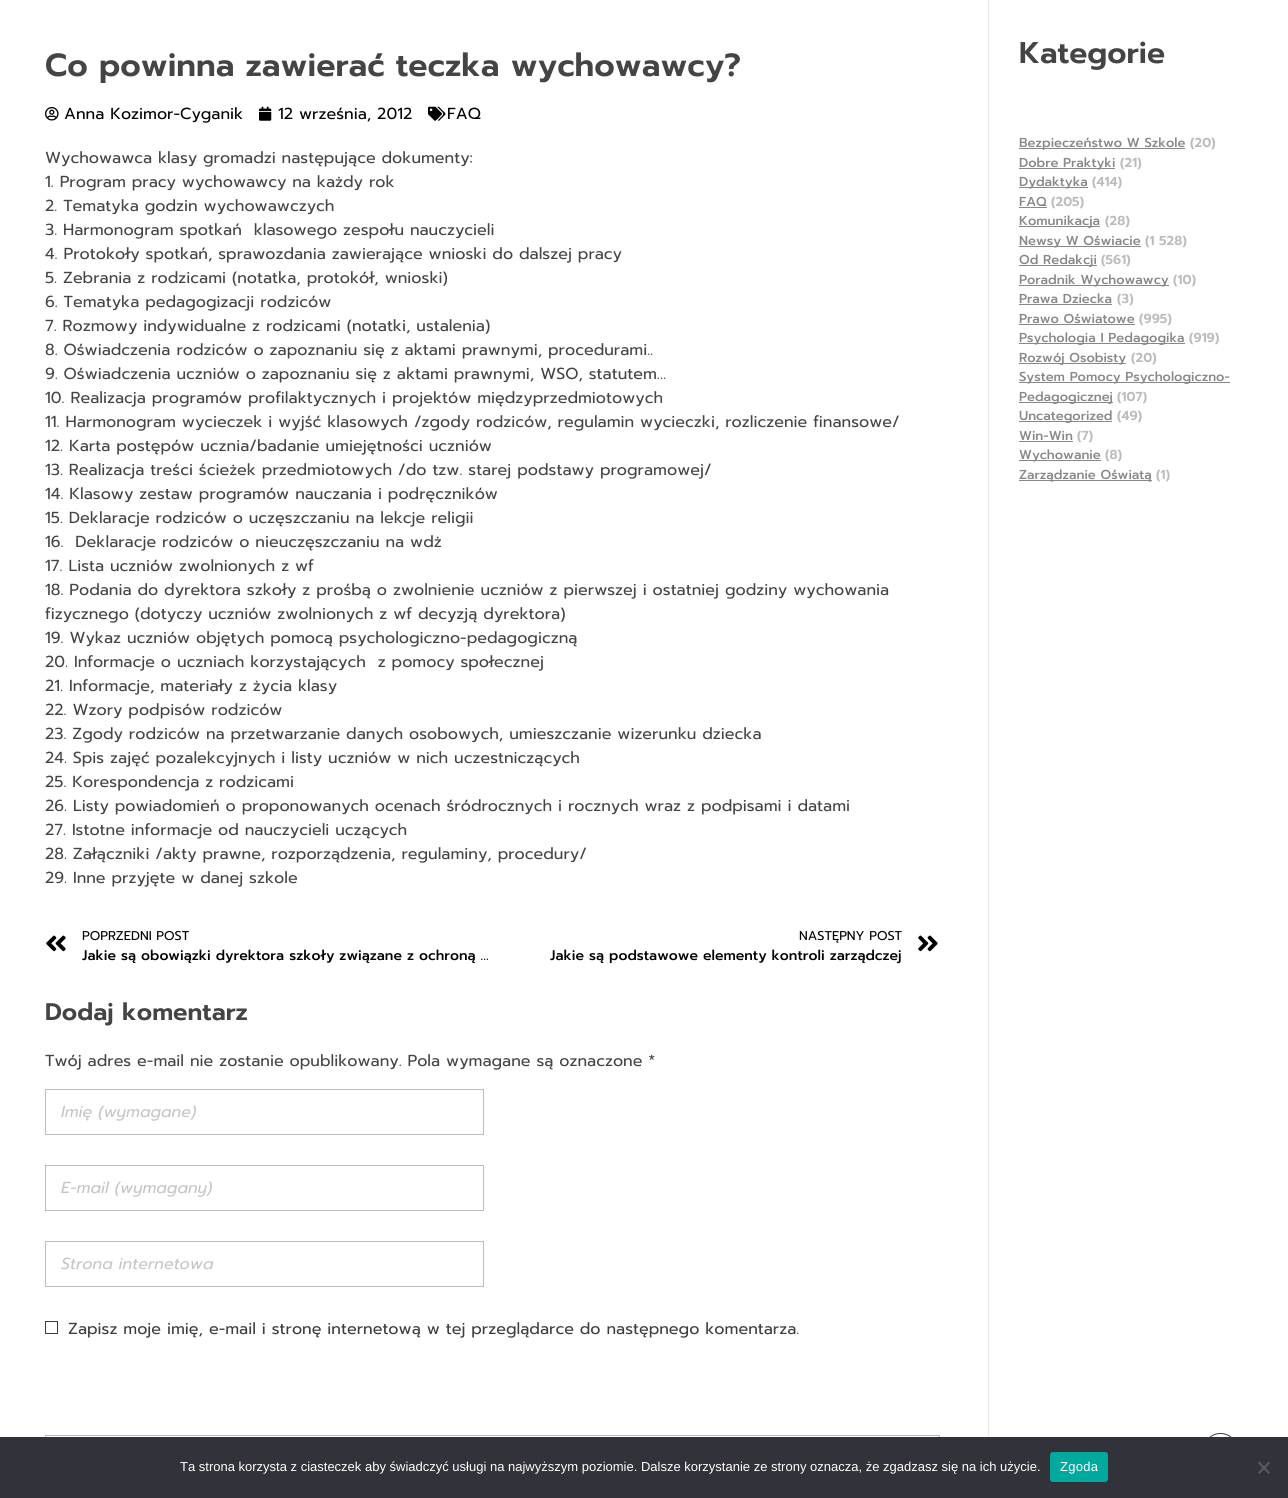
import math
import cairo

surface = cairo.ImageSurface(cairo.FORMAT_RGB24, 1288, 1498)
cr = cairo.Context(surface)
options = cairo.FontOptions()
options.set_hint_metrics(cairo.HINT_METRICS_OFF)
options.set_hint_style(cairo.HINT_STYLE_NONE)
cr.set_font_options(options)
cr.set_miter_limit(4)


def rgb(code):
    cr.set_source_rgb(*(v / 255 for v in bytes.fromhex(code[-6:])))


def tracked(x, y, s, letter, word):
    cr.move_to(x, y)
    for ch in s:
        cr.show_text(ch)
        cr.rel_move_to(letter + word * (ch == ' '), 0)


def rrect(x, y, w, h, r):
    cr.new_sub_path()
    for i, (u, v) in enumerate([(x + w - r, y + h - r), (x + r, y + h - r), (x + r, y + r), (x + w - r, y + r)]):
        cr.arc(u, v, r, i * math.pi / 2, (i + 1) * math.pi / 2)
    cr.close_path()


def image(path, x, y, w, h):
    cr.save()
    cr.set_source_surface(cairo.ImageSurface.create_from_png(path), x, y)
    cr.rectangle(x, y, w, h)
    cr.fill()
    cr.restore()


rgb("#ffffff")
cr.paint()
image("img/1.png", 45, 107, 14, 14)
image("img/2.png", 259, 106, 13, 15)
image("img/3.png", 428, 106, 18, 15)
image("img/4.png", 46, 935, 20, 17)
image("img/5.png", 918, 935, 20, 17)
cr.rectangle(45.5, 1089.5, 438, 45)
rgb("#bbbbbb")
cr.set_line_width(1)
cr.stroke()
cr.rectangle(45.5, 1165.5, 438, 45)
cr.stroke()
cr.rectangle(45.5, 1241.5, 438, 45)
cr.stroke()
cr.rectangle(45.5, 1321.5, 12, 12)
rgb("#3d3d3d")
cr.stroke()
cr.rectangle(45.5, 1435.5, 894, 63)
rgb("#bbbbbb")
cr.stroke()
for x, y, w, h, color in [
    (988, 0, 1, 1437, "#eaeaea"),
    (1019, 148, 166, 1, "#888888"),
    (1019, 168, 96, 1, "#888888"),
    (1019, 187, 69, 1, "#888888"),
    (1019, 207, 28, 1, "#888888"),
    (1019, 226, 81, 1, "#888888"),
    (1019, 246, 122, 1, "#888888"),
    (1019, 265, 78, 1, "#888888"),
    (1019, 285, 150, 1, "#888888"),
    (1019, 304, 93, 1, "#888888"),
    (1019, 324, 116, 1, "#888888"),
    (1019, 343, 166, 1, "#888888"),
    (1019, 363, 107, 1, "#888888"),
    (1019, 382, 211, 1, "#888888"),
    (1019, 402, 94, 1, "#888888"),
    (1019, 421, 93, 1, "#888888"),
    (1019, 441, 54, 1, "#888888"),
    (1019, 460, 82, 1, "#888888"),
    (1019, 480, 133, 1, "#888888"),
]:
    rgb(color)
    cr.rectangle(x, y, w, h)
    cr.fill()
cr.arc(1220.5, 1450.5, 17, 0, 2 * math.pi)
rgb("#3d3d3d")
cr.stroke()
rgb("#32323a")
cr.rectangle(0, 1437, 1288, 61)
cr.fill()
rgb("#00a99d")
rrect(1050, 1452, 58, 30, 3)
cr.fill()
rgb("#59595d")
cr.new_path()
cr.move_to(1268.5, 1461.5)
cr.line_to(1270, 1463)
cr.line_to(1259.5, 1474)
cr.line_to(1258, 1472.5)
cr.close_path()
cr.fill()
cr.new_path()
cr.move_to(1258, 1463)
cr.line_to(1259.5, 1461.5)
cr.line_to(1270, 1472.5)
cr.line_to(1268.5, 1474)
cr.close_path()
cr.fill()
cr.select_font_face("Prompt SemiBold")
cr.set_font_size(32)
rgb("#444444")
cr.move_to(45, 76)
cr.show_text("Co powinna zawierać teczka wychowawcy?")
cr.select_font_face("Prompt")
cr.set_font_size(16)
rgb("#000000")
for x, y, s in [
    (64, 119, "Anna Kozimor-Cyganik"),
    (278, 119, "12 września, 2012"),
    (447, 119, "FAQ"),
]:
    cr.move_to(x, y)
    cr.show_text(s)
rgb("#444444")
for x, y, s in [
    (45, 163, "Wychowawca klasy gromadzi następujące dokumenty:"),
    (45, 187, "1. Program pracy wychowawcy na każdy rok"),
    (45, 211, "2. Tematyka godzin wychowawczych"),
    (45, 235, "3. Harmonogram spotkań  klasowego zespołu nauczycieli"),
    (45, 259, "4. Protokoły spotkań, sprawozdania zawierające wnioski do dalszej pracy"),
    (45, 283, "5. Zebrania z rodzicami (notatka, protokół, wnioski)"),
    (45, 307, "6. Tematyka pedagogizacji rodziców"),
    (45, 331, "7. Rozmowy indywidualne z rodzicami (notatki, ustalenia)"),
    (45, 355, "8. Oświadczenia rodziców o zapoznaniu się z aktami prawnymi, procedurami.."),
    (45, 379, "9. Oświadczenia uczniów o zapoznaniu się z aktami prawnymi, WSO, statutem…"),
    (45, 403, "10. Realizacja programów profilaktycznych i projektów międzyprzedmiotowych"),
    (45, 427, "11. Harmonogram wycieczek i wyjść klasowych /zgody rodziców, regulamin wycieczki, rozliczenie finansowe/"),
    (45, 451, "12. Karta postępów ucznia/badanie umiejętności uczniów"),
    (45, 475, "13. Realizacja treści ścieżek przedmiotowych /do tzw. starej podstawy programowej/"),
    (45, 499, "14. Klasowy zestaw programów nauczania i podręczników"),
    (45, 523, "15. Deklaracje rodziców o uczęszczaniu na lekcje religii"),
    (45, 547, "16.  Deklaracje rodziców o nieuczęszczaniu na wdż"),
    (45, 571, "17. Lista uczniów zwolnionych z wf"),
    (45, 595, "18. Podania do dyrektora szkoły z prośbą o zwolnienie uczniów z pierwszej i ostatniej godziny wychowania"),
    (45, 619, "fizycznego (dotyczy uczniów zwolnionych z wf decyzją dyrektora)"),
    (45, 643, "19. Wykaz uczniów objętych pomocą psychologiczno-pedagogiczną"),
    (45, 667, "20. Informacje o uczniach korzystających  z pomocy społecznej"),
    (45, 691, "21. Informacje, materiały z życia klasy"),
    (45, 715, "22. Wzory podpisów rodziców"),
    (45, 739, "23. Zgody rodziców na przetwarzanie danych osobowych, umieszczanie wizerunku dziecka"),
    (45, 763, "24. Spis zajęć pozalekcyjnych i listy uczniów w nich uczestniczących"),
    (45, 787, "25. Korespondencja z rodzicami"),
    (45, 811, "26. Listy powiadomień o proponowanych ocenach śródrocznych i rocznych wraz z podpisami i datami"),
    (45, 835, "27. Istotne informacje od nauczycieli uczących"),
    (45, 859, "28. Załączniki /akty prawne, rozporządzenia, regulaminy, procedury/"),
    (45, 883, "29. Inne przyjęte w danej szkole"),
]:
    cr.move_to(x, y)
    cr.show_text(s)
cr.set_font_size(12.75)
rgb("#000000")
cr.move_to(82, 940)
cr.show_text("POPRZEDNI POST")
cr.select_font_face("Prompt Medium")
cr.set_font_size(14)
cr.move_to(82, 960)
cr.show_text("Jakie są obowiązki dyrektora szkoły związane z ochroną …")
cr.select_font_face("Prompt")
cr.set_font_size(12.75)
cr.move_to(799, 940)
cr.show_text("NASTĘPNY POST")
cr.select_font_face("Prompt Medium")
cr.set_font_size(14)
cr.move_to(550, 960)
cr.show_text("Jakie są podstawowe elementy kontroli zarządczej")
cr.select_font_face("Prompt SemiBold")
cr.set_font_size(24)
rgb("#444444")
cr.move_to(45, 1020)
cr.show_text("Dodaj komentarz")
cr.select_font_face("Prompt")
cr.set_font_size(16)
cr.move_to(45, 1066)
cr.show_text("Twój adres e-mail nie zostanie opublikowany. Pola wymagane są oznaczone *")
cr.select_font_face("Prompt", cairo.FONT_SLANT_ITALIC)
rgb("#c5c5c5")
for x, y, s in [
    (61, 1117, "Imię (wymagane)"),
    (61, 1193, "E-mail (wymagany)"),
    (61, 1269, "Strona internetowa"),
]:
    cr.move_to(x, y)
    cr.show_text(s)
cr.select_font_face("Prompt")
rgb("#3d3d3d")
cr.move_to(68, 1334)
cr.show_text("Zapisz moje imię, e-mail i stronę internetową w tej przeglądarce do następnego komentarza.")
cr.select_font_face("Prompt SemiBold")
cr.set_font_size(30)
rgb("#444444")
cr.move_to(1019, 63)
cr.show_text("Kategorie")
cr.select_font_face("Prompt Medium")
cr.set_font_size(13)
rgb("#888888")
cr.move_to(1019, 147)
cr.show_text("Bezpieczeństwo W Szkole")
cr.select_font_face("Prompt SemiBold")
rgb("#bbbbbb")
cr.move_to(1190, 147)
cr.show_text("(20)")
cr.select_font_face("Prompt Medium")
rgb("#888888")
cr.move_to(1019, 167)
cr.show_text("Dobre Praktyki")
cr.select_font_face("Prompt SemiBold")
rgb("#bbbbbb")
cr.move_to(1120, 167)
cr.show_text("(21)")
cr.select_font_face("Prompt Medium")
rgb("#888888")
cr.move_to(1019, 186)
cr.show_text("Dydaktyka")
cr.select_font_face("Prompt SemiBold")
rgb("#bbbbbb")
cr.move_to(1092, 186)
cr.show_text("(414)")
cr.select_font_face("Prompt Medium")
rgb("#888888")
cr.move_to(1019, 206)
cr.show_text("FAQ")
cr.select_font_face("Prompt SemiBold")
rgb("#bbbbbb")
cr.move_to(1051, 206)
cr.show_text("(205)")
cr.select_font_face("Prompt Medium")
rgb("#888888")
cr.move_to(1019, 225)
cr.show_text("Komunikacja")
cr.select_font_face("Prompt SemiBold")
rgb("#bbbbbb")
cr.move_to(1105, 225)
cr.show_text("(28)")
cr.select_font_face("Prompt Medium")
rgb("#888888")
cr.move_to(1019, 245)
cr.show_text("Newsy W Oświacie")
cr.select_font_face("Prompt SemiBold")
rgb("#bbbbbb")
cr.move_to(1145, 245)
cr.show_text("(1 528)")
cr.select_font_face("Prompt Medium")
rgb("#888888")
cr.move_to(1019, 264)
cr.show_text("Od Redakcji")
cr.select_font_face("Prompt SemiBold")
rgb("#bbbbbb")
cr.move_to(1101, 264)
cr.show_text("(561)")
cr.select_font_face("Prompt Medium")
rgb("#888888")
cr.move_to(1019, 284)
cr.show_text("Poradnik Wychowawcy")
cr.select_font_face("Prompt SemiBold")
rgb("#bbbbbb")
cr.move_to(1173, 284)
cr.show_text("(10)")
cr.select_font_face("Prompt Medium")
rgb("#888888")
cr.move_to(1019, 303)
cr.show_text("Prawa Dziecka")
cr.select_font_face("Prompt SemiBold")
rgb("#bbbbbb")
cr.move_to(1117, 303)
cr.show_text("(3)")
cr.select_font_face("Prompt Medium")
rgb("#888888")
cr.move_to(1019, 323)
cr.show_text("Prawo Oświatowe")
cr.select_font_face("Prompt SemiBold")
rgb("#bbbbbb")
cr.move_to(1139, 323)
cr.show_text("(995)")
cr.select_font_face("Prompt Medium")
rgb("#888888")
cr.move_to(1019, 342)
cr.show_text("Psychologia I Pedagogika")
cr.select_font_face("Prompt SemiBold")
rgb("#bbbbbb")
cr.move_to(1189, 342)
cr.show_text("(919)")
cr.select_font_face("Prompt Medium")
rgb("#888888")
cr.move_to(1019, 362)
cr.show_text("Rozwój Osobisty")
cr.select_font_face("Prompt SemiBold")
rgb("#bbbbbb")
cr.move_to(1131, 362)
cr.show_text("(20)")
cr.select_font_face("Prompt Medium")
rgb("#888888")
cr.move_to(1019, 381)
cr.show_text("System Pomocy Psychologiczno-")
cr.move_to(1019, 401)
cr.show_text("Pedagogicznej")
cr.select_font_face("Prompt SemiBold")
rgb("#bbbbbb")
cr.move_to(1117, 401)
cr.show_text("(107)")
cr.select_font_face("Prompt Medium")
rgb("#888888")
cr.move_to(1019, 420)
cr.show_text("Uncategorized")
cr.select_font_face("Prompt SemiBold")
rgb("#bbbbbb")
cr.move_to(1117, 420)
cr.show_text("(49)")
cr.select_font_face("Prompt Medium")
rgb("#888888")
cr.move_to(1019, 440)
cr.show_text("Win-Win")
cr.select_font_face("Prompt SemiBold")
rgb("#bbbbbb")
cr.move_to(1077, 440)
cr.show_text("(7)")
cr.select_font_face("Prompt Medium")
rgb("#888888")
cr.move_to(1019, 459)
cr.show_text("Wychowanie")
cr.select_font_face("Prompt SemiBold")
rgb("#bbbbbb")
cr.move_to(1105, 459)
cr.show_text("(8)")
cr.select_font_face("Prompt Medium")
rgb("#888888")
cr.move_to(1019, 479)
cr.show_text("Zarządzanie Oświatą")
cr.select_font_face("Prompt SemiBold")
rgb("#bbbbbb")
cr.move_to(1156, 479)
cr.show_text("(1)")
cr.select_font_face("Liberation Sans")
rgb("#ffffff")
cr.move_to(180, 1471)
cr.show_text("Ta strona korzysta z ciasteczek aby świadczyć usługi na najwyższym poziomie. Dalsze korzystanie ze strony oznacza, że zgadzasz się na ich użycie.")
tracked(1060, 1471, "Zgoda", 0.25, 0)
surface.write_to_png("page.png")
